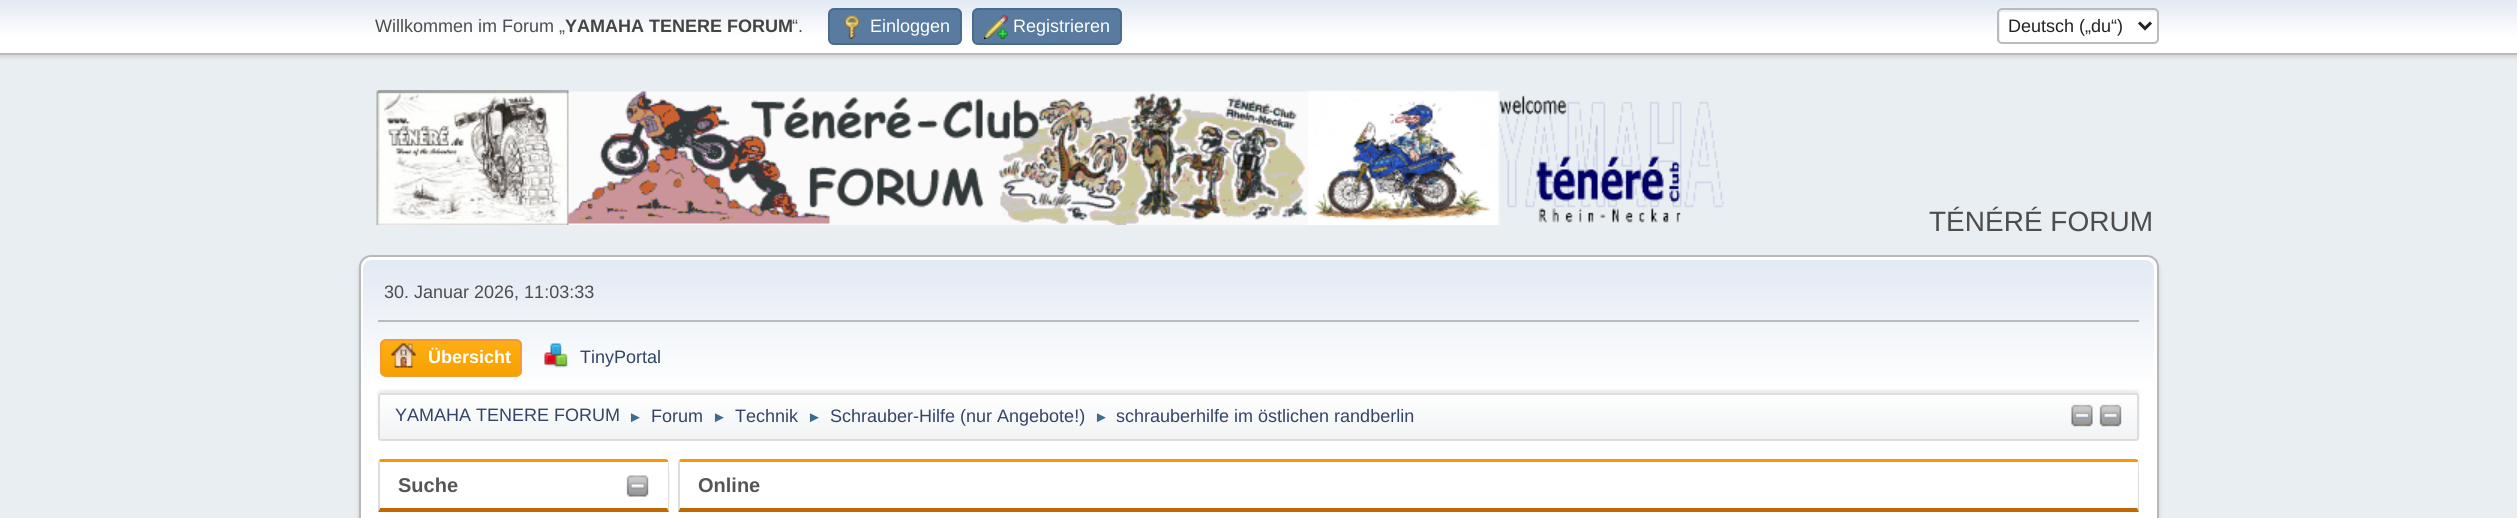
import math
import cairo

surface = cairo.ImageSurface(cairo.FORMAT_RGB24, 2517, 518)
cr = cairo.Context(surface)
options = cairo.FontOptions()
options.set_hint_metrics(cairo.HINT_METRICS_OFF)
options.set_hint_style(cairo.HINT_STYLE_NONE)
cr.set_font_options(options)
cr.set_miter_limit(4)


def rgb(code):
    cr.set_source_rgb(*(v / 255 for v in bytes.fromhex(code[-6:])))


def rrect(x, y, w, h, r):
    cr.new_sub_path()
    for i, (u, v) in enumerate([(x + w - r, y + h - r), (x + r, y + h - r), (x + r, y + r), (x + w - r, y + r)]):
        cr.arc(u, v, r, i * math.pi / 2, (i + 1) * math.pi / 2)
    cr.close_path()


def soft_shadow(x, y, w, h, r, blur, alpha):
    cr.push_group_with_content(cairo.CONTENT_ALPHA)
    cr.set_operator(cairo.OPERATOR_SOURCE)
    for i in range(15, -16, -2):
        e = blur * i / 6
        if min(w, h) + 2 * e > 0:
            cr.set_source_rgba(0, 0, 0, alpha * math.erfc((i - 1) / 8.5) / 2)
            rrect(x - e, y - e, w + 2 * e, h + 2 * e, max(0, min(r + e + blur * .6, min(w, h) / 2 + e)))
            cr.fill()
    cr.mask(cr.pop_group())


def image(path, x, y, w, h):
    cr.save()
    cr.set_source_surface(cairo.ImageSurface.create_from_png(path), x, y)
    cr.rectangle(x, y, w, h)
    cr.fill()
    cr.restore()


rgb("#e9eef2")
cr.paint()
rgb("#000000")
soft_shadow(0, 2, 2517, 54, 0, 3, 0.16)
gradient = cairo.LinearGradient(1259, 0, 1259, 53)
gradient.add_color_stop_rgba(0, 0.886, 0.914, 0.953, 1)
gradient.add_color_stop_rgba(0.7, 1, 1, 1, 1)
cr.set_source(gradient)
cr.rectangle(0, 0, 2517, 53)
cr.fill()
rgb("#bbbbbb")
cr.rectangle(0, 53, 2517, 2)
cr.fill()
rgb("#597b9f")
rrect(829, 9, 132, 35, 5)
cr.fill_preserve()
rgb("#4a6b8c")
cr.stroke()
image("img/1.png", 844, 15, 16, 24)
rgb("#597b9f")
rrect(973, 9, 148, 35, 5)
cr.fill_preserve()
rgb("#4a6b8c")
cr.stroke()
image("img/2.png", 984, 15, 24, 24)
rgb("#ffffff")
rrect(1997, 8, 162, 36, 5)
cr.fill()
rgb("#ecf1f8")
cr.new_path()
cr.move_to(2002, 12)
cr.curve_to(2016, 12, 2156, 11, 2157, 12)
cr.line_to(2156, 10)
cr.line_to(2154, 9)
cr.line_to(2026, 9)
cr.curve_to(2026, 9, 1998, 4, 1998, 12)
cr.line_to(1998, 30)
cr.curve_to(1998, 32, 1996, 41, 2000, 42)
cr.line_to(2000, 15)
cr.curve_to(2000, 13, 2001, 12, 2002, 12)
cr.close_path()
cr.fill()
rrect(1998, 9, 160, 34, 4)
rgb("#bbbbbb")
cr.stroke()
cr.new_path()
cr.move_to(2139, 22.5)
cr.line_to(2145, 28.5)
cr.line_to(2151, 22.5)
rgb("#222222")
cr.set_line_width(3)
cr.stroke()
image("img/3.png", 376, 90, 1348, 135)
rgb("#000000")
soft_shadow(359, 258, 1800, 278, 12, 2, 0.14)
rgb("#ffffff")
rrect(360, 256, 1798, 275, 11)
cr.fill_preserve()
rgb("#b8b8b8")
cr.set_line_width(2)
cr.stroke()
gradient = cairo.LinearGradient(1259, 259, 1259, 444)
gradient.add_color_stop_rgba(0, 0.886, 0.914, 0.953, 1)
gradient.add_color_stop_rgba(0.7, 1, 1, 1, 1)
cr.set_source(gradient)
cr.new_path()
cr.move_to(372, 260)
cr.line_to(2145, 260)
cr.curve_to(2150, 260, 2154, 264, 2154, 269)
cr.line_to(2154, 444)
cr.line_to(363, 444)
cr.line_to(363, 269)
cr.curve_to(363, 264, 367, 260, 372, 260)
cr.close_path()
cr.fill()
rgb("#bbbbbb")
cr.rectangle(378, 320, 1761, 2)
cr.fill()
cr.save()
rrect(380, 339, 142, 38, 6)
cr.clip()
gradient = cairo.LinearGradient(451, 341, 451, 375)
gradient.add_color_stop_rgba(0, 1, 0.682, 0.078, 1)
gradient.add_color_stop_rgba(1, 0.961, 0.631, 0, 1)
cr.set_source(gradient)
cr.rectangle(380, 341, 142, 34)
cr.fill()
cr.restore()
rrect(381, 340, 140, 36, 5)
rgb("#f49a3a")
cr.stroke()
image("img/4.png", 391, 343, 25, 25)
image("img/5.png", 544, 343, 24, 25)
rgb("#000000")
soft_shadow(378, 390, 1761, 48, 3, 1.5, 0.08)
cr.save()
rrect(378, 393, 1761, 48, 3)
cr.clip()
gradient = cairo.LinearGradient(1259, 394, 1259, 440)
gradient.add_color_stop_rgba(0, 1, 1, 1, 1)
gradient.add_color_stop_rgba(0.95, 0.945, 0.953, 0.961, 1)
cr.set_source(gradient)
cr.rectangle(378, 395, 1761, 45)
cr.fill()
cr.restore()
rrect(379, 394, 1759, 46, 2)
rgb("#dddddd")
cr.stroke()
image("img/6.png", 2071, 404, 22, 23)
image("img/7.png", 2099, 404, 23, 23)
rgb("#ff9400")
cr.new_path()
cr.move_to(381, 459)
cr.line_to(379, 460)
cr.line_to(380, 463)
cr.line_to(380, 462)
cr.line_to(668, 462)
cr.line_to(668, 460)
cr.line_to(666, 459)
cr.close_path()
cr.fill()
rgb("#dddddd")
cr.new_path()
cr.move_to(669, 512)
cr.curve_to(669, 505, 670, 462, 668, 460)
cr.line_to(668, 462)
cr.line_to(668, 508)
cr.line_to(667, 508)
cr.close_path()
cr.fill()
rgb("#bf6900")
cr.new_path()
cr.move_to(669, 512)
cr.line_to(378, 512)
cr.line_to(380, 508)
cr.line_to(667, 508)
cr.close_path()
cr.fill()
rgb("#dddddd")
cr.new_path()
cr.move_to(378, 512)
cr.line_to(380, 508)
cr.line_to(380, 463)
cr.line_to(379, 460)
cr.line_to(378, 462)
cr.close_path()
cr.fill()
image("img/8.png", 626, 475, 23, 22)
rgb("#ff9400")
cr.new_path()
cr.move_to(681, 459)
cr.line_to(679, 460)
cr.line_to(680, 463)
cr.line_to(680, 462)
cr.line_to(2138, 462)
cr.line_to(2138, 460)
cr.line_to(2136, 459)
cr.close_path()
cr.fill()
cr.save()
cr.rectangle(678, 452, 1461, 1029)
cr.clip()
rgb("#dddddd")
cr.new_path()
cr.move_to(2139, 512)
cr.curve_to(2139, 505, 2140, 462, 2138, 460)
cr.line_to(2138, 462)
cr.line_to(2138, 508)
cr.line_to(2137, 508)
cr.close_path()
cr.fill()
cr.restore()
rgb("#bf6900")
cr.new_path()
cr.move_to(2139, 512)
cr.line_to(678, 512)
cr.line_to(680, 508)
cr.line_to(2137, 508)
cr.close_path()
cr.fill()
rgb("#dddddd")
cr.new_path()
cr.move_to(678, 512)
cr.line_to(680, 508)
cr.line_to(680, 463)
cr.line_to(679, 460)
cr.line_to(678, 462)
cr.close_path()
cr.fill()
cr.select_font_face("Liberation Sans")
cr.set_font_size(18)
rgb("#4d4d4d")
cr.move_to(375, 32)
cr.show_text("Willkommen im Forum „")
cr.select_font_face("Liberation Sans", cairo.FONT_SLANT_NORMAL, cairo.FONT_WEIGHT_BOLD)
rgb("#444444")
cr.move_to(565, 32)
cr.show_text("YAMAHA TENERE FORUM")
cr.select_font_face("Liberation Sans")
rgb("#4d4d4d")
cr.move_to(792, 32)
cr.show_text("“.")
rgb("#ffffff")
cr.move_to(870, 32)
cr.show_text("Einloggen")
cr.move_to(1013, 32)
cr.show_text("Registrieren")
rgb("#222222")
cr.move_to(2008, 32)
cr.show_text("Deutsch („du“)")
cr.set_font_size(28)
rgb("#4d4d4d")
cr.move_to(1929, 231)
cr.show_text("TÉNÉRÉ FORUM")
cr.set_font_size(18)
cr.move_to(384, 298)
cr.show_text("30. Januar 2026, 11:03:33")
cr.select_font_face("Liberation Sans", cairo.FONT_SLANT_NORMAL, cairo.FONT_WEIGHT_BOLD)
rgb("#ffffff")
cr.move_to(428, 363)
cr.show_text("Übersicht")
cr.select_font_face("Liberation Sans")
rgb("#334466")
cr.move_to(580, 363)
cr.show_text("TinyPortal")
cr.move_to(395, 421)
cr.show_text("YAMAHA TENERE FORUM")
cr.set_font_size(15)
rgb("#3f6b8c")
cr.move_to(628, 422)
cr.show_text("►")
cr.set_font_size(18)
rgb("#334466")
cr.move_to(651, 422)
cr.show_text("Forum")
cr.set_font_size(15)
rgb("#3f6b8c")
cr.move_to(712, 422)
cr.show_text("►")
cr.set_font_size(18)
rgb("#334466")
cr.move_to(735, 422)
cr.show_text("Technik")
cr.set_font_size(15)
rgb("#3f6b8c")
cr.move_to(807, 422)
cr.show_text("►")
cr.set_font_size(18)
rgb("#334466")
cr.move_to(830, 422)
cr.show_text("Schrauber-Hilfe (nur Angebote!)")
cr.set_font_size(15)
rgb("#3f6b8c")
cr.move_to(1094, 422)
cr.show_text("►")
cr.set_font_size(18)
rgb("#334466")
cr.move_to(1116, 422)
cr.show_text("schrauberhilfe im östlichen randberlin")
cr.select_font_face("Liberation Sans", cairo.FONT_SLANT_NORMAL, cairo.FONT_WEIGHT_BOLD)
cr.set_font_size(20)
rgb("#555555")
cr.move_to(398, 492)
cr.show_text("Suche")
cr.move_to(698, 492)
cr.show_text("Online")
surface.write_to_png("page.png")
